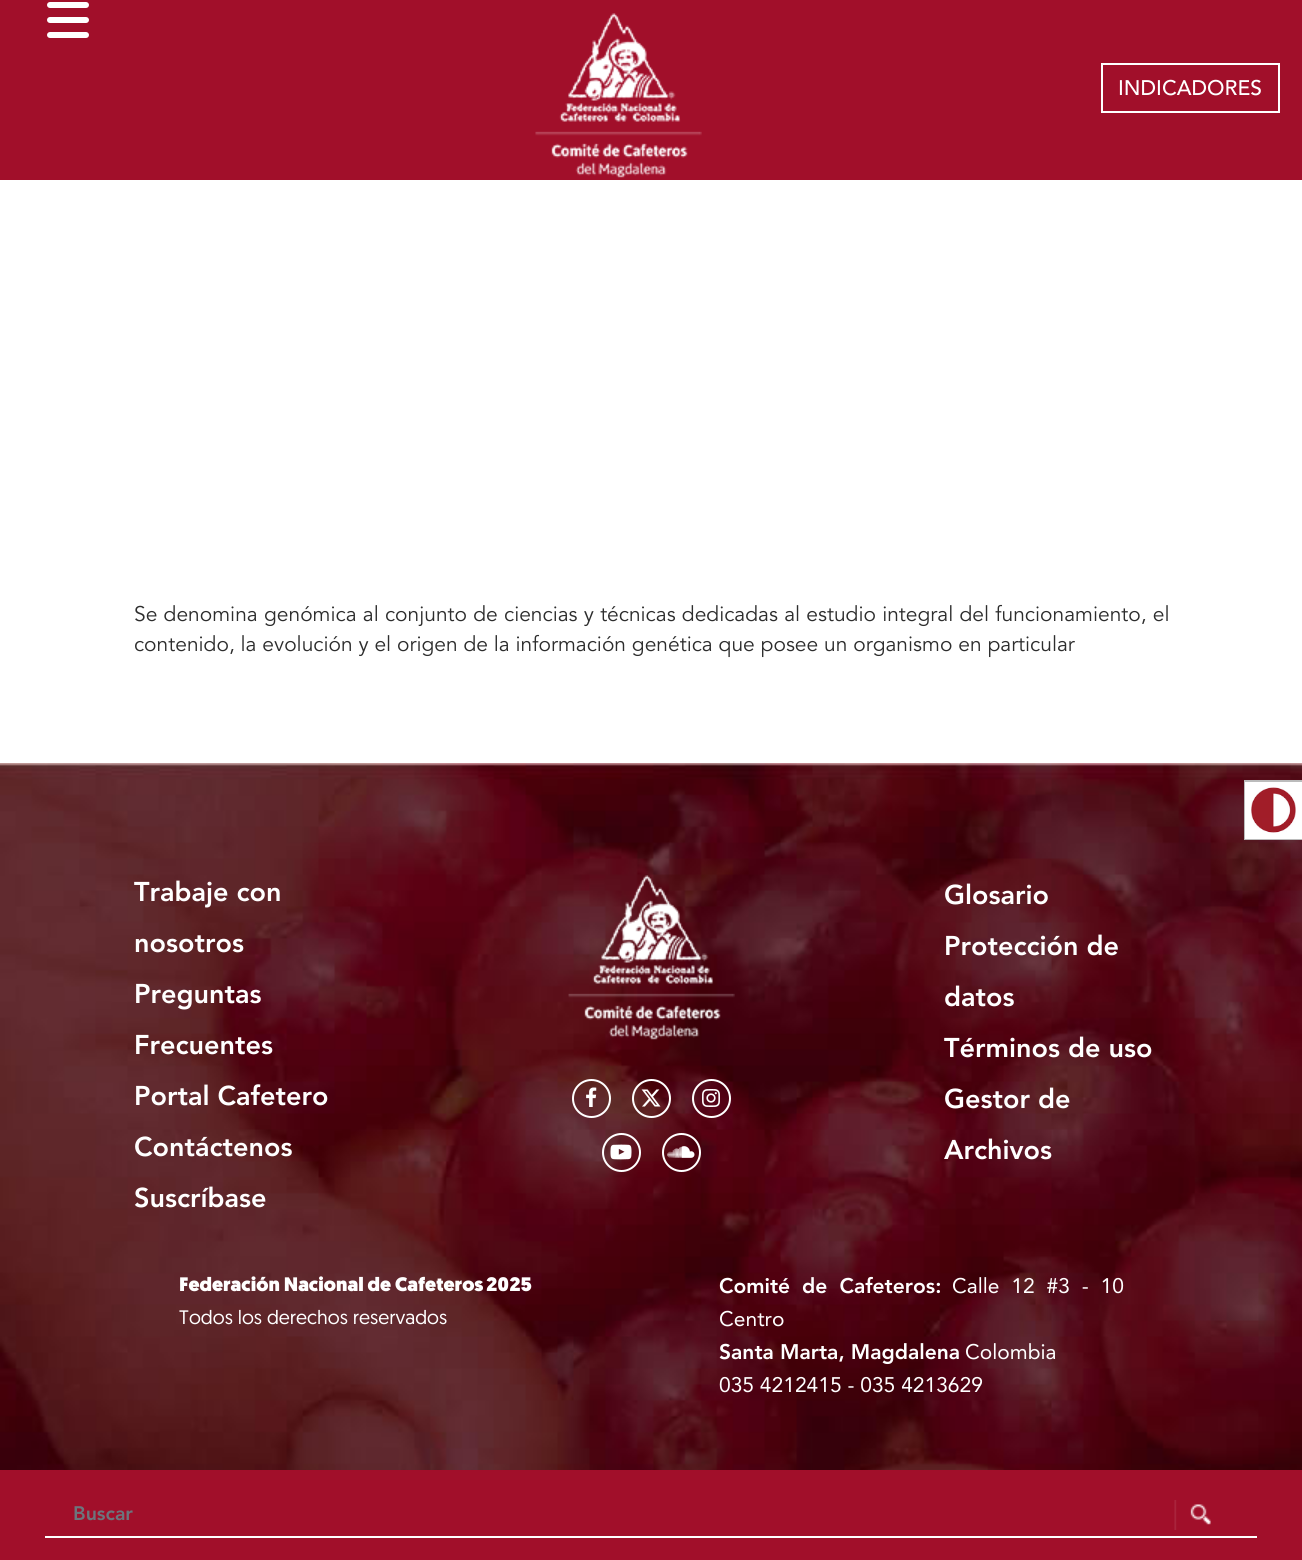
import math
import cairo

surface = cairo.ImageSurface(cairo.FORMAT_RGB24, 1302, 1560)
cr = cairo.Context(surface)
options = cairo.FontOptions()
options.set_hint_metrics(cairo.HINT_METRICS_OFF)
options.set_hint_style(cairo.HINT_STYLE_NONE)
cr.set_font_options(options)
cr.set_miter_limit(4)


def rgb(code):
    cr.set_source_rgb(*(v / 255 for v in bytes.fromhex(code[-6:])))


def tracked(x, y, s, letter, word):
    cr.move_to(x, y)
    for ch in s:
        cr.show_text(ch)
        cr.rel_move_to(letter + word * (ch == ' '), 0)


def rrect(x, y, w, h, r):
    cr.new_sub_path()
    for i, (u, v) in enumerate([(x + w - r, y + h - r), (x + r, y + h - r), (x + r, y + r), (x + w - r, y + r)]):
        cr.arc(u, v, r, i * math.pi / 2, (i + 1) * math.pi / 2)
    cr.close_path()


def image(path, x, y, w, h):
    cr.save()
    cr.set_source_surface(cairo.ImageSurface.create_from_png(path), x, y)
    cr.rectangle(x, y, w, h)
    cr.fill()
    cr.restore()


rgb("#ffffff")
cr.paint()
rgb("#a10f2a")
cr.rectangle(0, 0, 1302, 180)
cr.fill()
image("img/1.png", 535, 13, 167, 165)
rgb("#ffffff")
rrect(47, 2, 42, 6, 3)
cr.fill()
rrect(47, 17, 42, 6, 3)
cr.fill()
rrect(47, 32, 42, 6, 3)
cr.fill()
cr.rectangle(1102, 64, 177, 48)
cr.stroke()
rgb("#a10f2a")
cr.rectangle(0, 1470, 1302, 90)
cr.fill()
image("img/2.png", 1174, 1500, 37, 30)
rgb("#ffffff")
cr.rectangle(45, 1536, 1212, 2)
cr.fill()
image("img/4.png", 0, 763, 1302, 707)
cr.rectangle(1245, 781, 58, 58)
rgb("#bbbbbb")
cr.stroke()
rgb("#ffffff")
cr.rectangle(1245, 782, 57, 57)
cr.fill()
image("img/3.png", 1251, 787, 45, 46)
image("img/5.png", 568, 875, 167, 165)
cr.arc(591.5, 1098.5, 18.5, 0, 2 * math.pi)
cr.stroke()
image("img/6.png", 586, 1087, 11, 20)
cr.arc(651.5, 1098.5, 18.5, 0, 2 * math.pi)
cr.stroke()
image("img/7.png", 641, 1089, 20, 18)
cr.arc(711.5, 1098.5, 18.5, 0, 2 * math.pi)
cr.stroke()
image("img/8.png", 702, 1089, 18, 18)
cr.arc(621.5, 1152.5, 18.5, 0, 2 * math.pi)
cr.stroke()
image("img/9.png", 610, 1144, 22, 16)
cr.arc(681.5, 1152.5, 18.5, 0, 2 * math.pi)
cr.stroke()
image("img/10.png", 667, 1146, 28, 12)
cr.select_font_face("Avenir Medium")
cr.set_font_size(21)
cr.move_to(1118, 95)
cr.show_text("INDICADORES")
cr.select_font_face("Avenir Black")
cr.set_font_size(19.5)
rgb("#6c757d")
cr.move_to(73, 1520)
cr.show_text("Buscar")
cr.select_font_face("Avenir")
cr.set_font_size(21)
rgb("#2d2d2d")
tracked(134, 621, "Se denomina genómica al conjunto de ciencias y técnicas dedicadas al estudio integral del funcionamiento, el", 0, 0.4)
cr.move_to(134, 651)
cr.show_text("contenido, la evolución y el origen de la información genética que posee un organismo en particular")
cr.select_font_face("Avenir Black")
cr.set_font_size(27)
rgb("#ffffff")
for x, y, s in [
    (134, 901, "Trabaje con"),
    (134, 952, "nosotros"),
    (134, 1003, "Preguntas"),
    (134, 1054, "Frecuentes"),
    (134, 1105, "Portal Cafetero"),
    (134, 1156, "Contáctenos"),
    (134, 1207, "Suscríbase"),
    (944, 904, "Glosario"),
    (944, 955, "Protección de"),
    (944, 1006, "datos"),
    (944, 1057, "Términos de uso"),
    (944, 1108, "Gestor de"),
    (944, 1159, "Archivos"),
]:
    cr.move_to(x, y)
    cr.show_text(s)
cr.select_font_face("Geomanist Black")
cr.set_font_size(19.5)
cr.move_to(179, 1291)
cr.show_text("Federación Nacional de Cafeteros")
cr.move_to(486, 1291)
cr.show_text("2025")
cr.select_font_face("Geomanist")
cr.move_to(179, 1324)
cr.show_text("Todos los derechos reservados")
cr.select_font_face("Avenir Black")
cr.set_font_size(21)
cr.move_to(719, 1293)
cr.show_text("Comité")
tracked(802, 1293, "de Cafeteros:", 0, 6)
cr.select_font_face("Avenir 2")
tracked(952, 1293, "Calle 12 #3 - 10", 0, 6)
cr.move_to(719, 1326)
cr.show_text("Centro")
cr.select_font_face("Avenir Black")
cr.move_to(719, 1359)
cr.show_text("Santa Marta, Magdalena")
cr.select_font_face("Avenir 2")
cr.move_to(965, 1359)
cr.show_text("Colombia")
cr.move_to(719, 1392)
cr.show_text("035 4212415 - 035 4213629")
surface.write_to_png("page.png")
